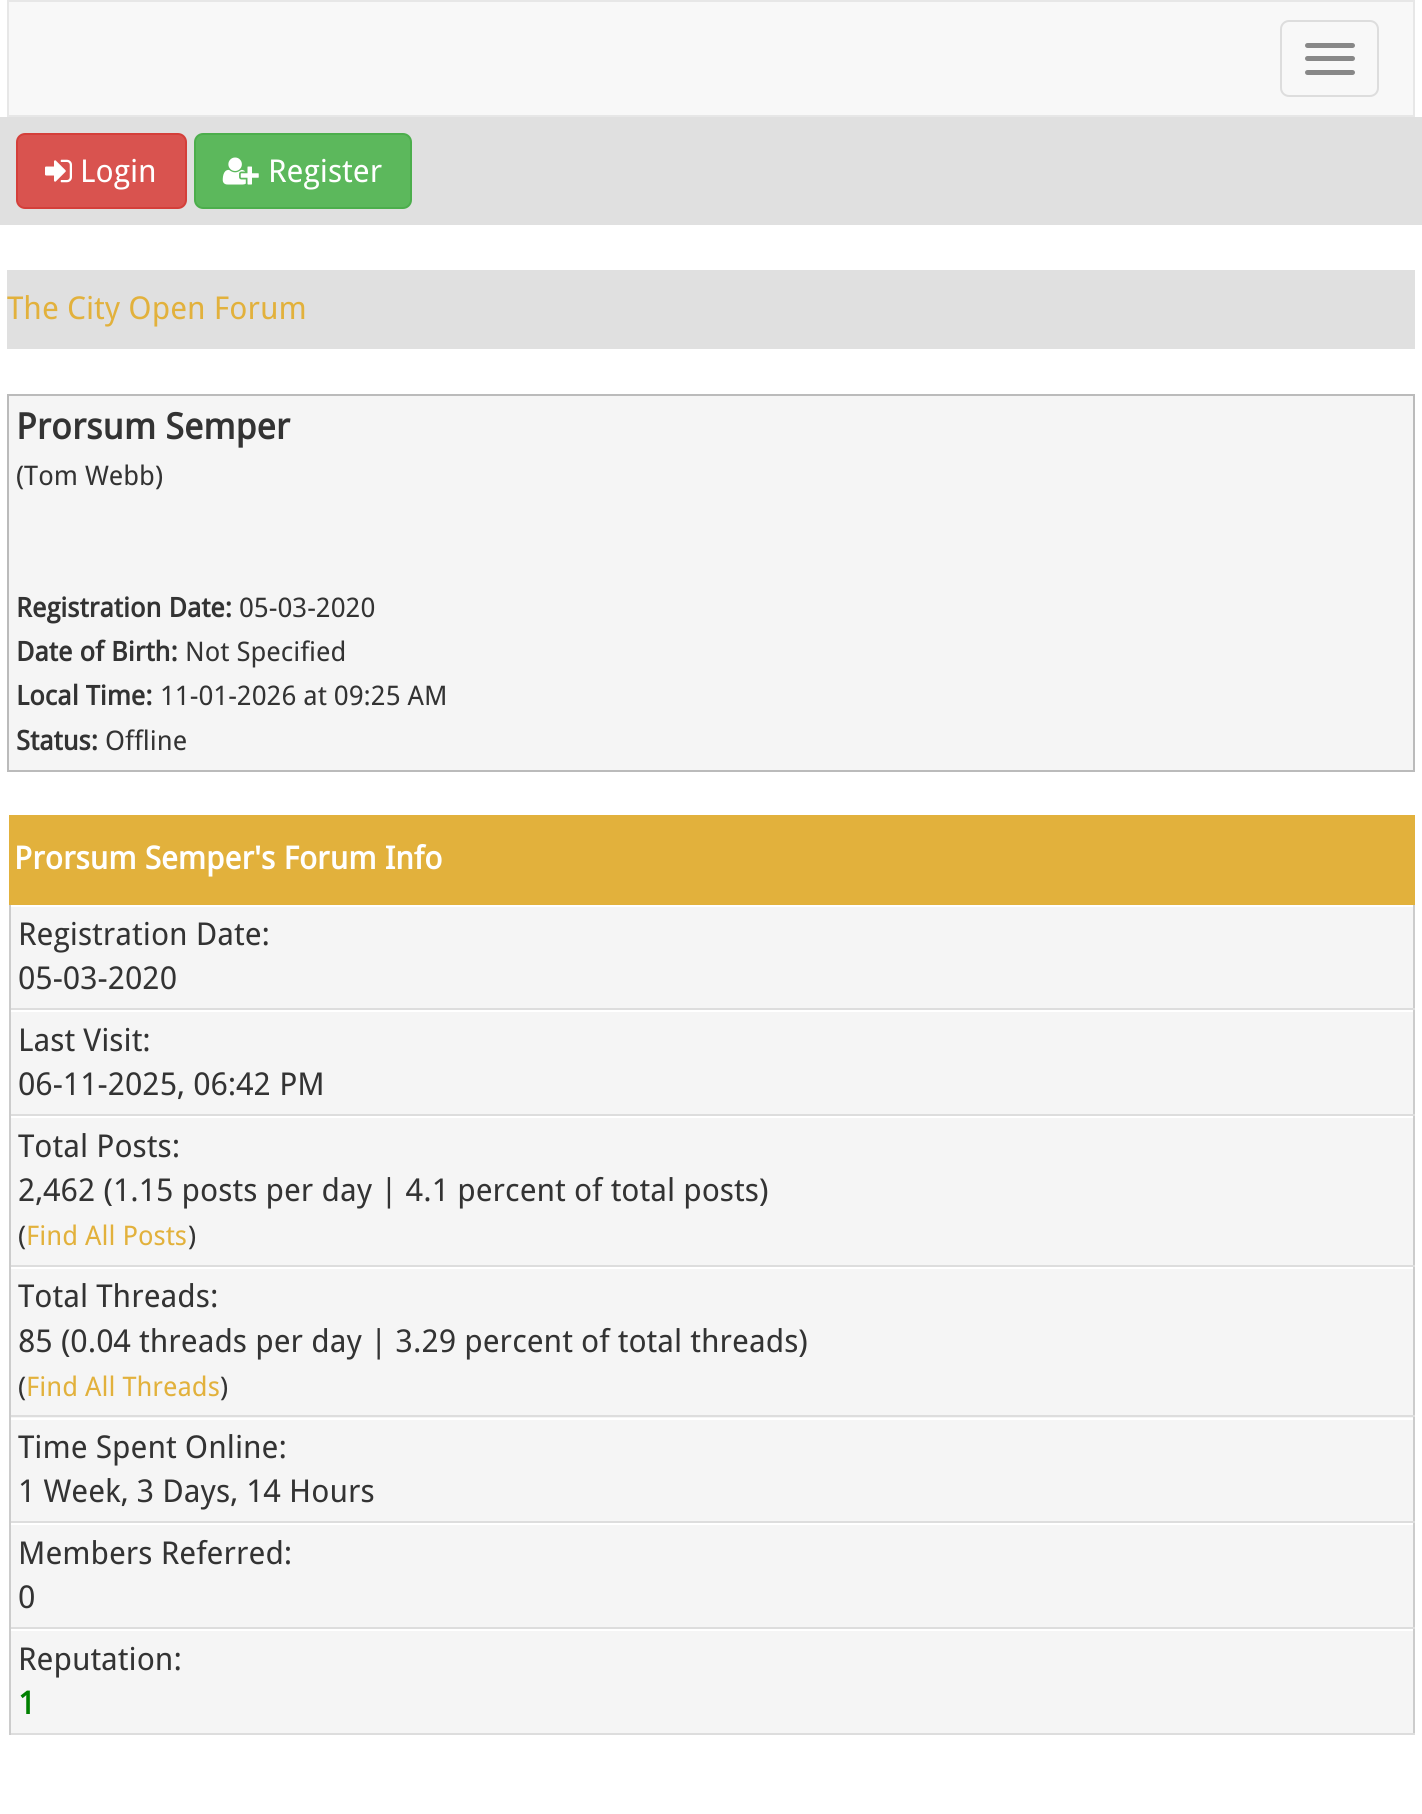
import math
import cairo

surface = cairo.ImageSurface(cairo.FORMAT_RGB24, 1422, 1814)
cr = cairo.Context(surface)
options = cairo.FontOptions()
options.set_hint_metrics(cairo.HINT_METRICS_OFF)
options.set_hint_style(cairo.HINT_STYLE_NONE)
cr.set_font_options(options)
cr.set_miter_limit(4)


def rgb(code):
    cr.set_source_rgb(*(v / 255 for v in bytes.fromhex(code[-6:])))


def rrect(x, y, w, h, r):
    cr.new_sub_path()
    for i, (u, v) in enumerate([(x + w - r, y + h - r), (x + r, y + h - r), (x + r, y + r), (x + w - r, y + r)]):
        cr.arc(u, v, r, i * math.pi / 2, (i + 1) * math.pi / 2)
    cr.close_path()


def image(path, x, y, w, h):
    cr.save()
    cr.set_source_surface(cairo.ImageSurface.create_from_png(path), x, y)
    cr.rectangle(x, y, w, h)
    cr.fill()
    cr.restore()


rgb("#ffffff")
cr.paint()
rgb("#f8f8f8")
cr.rectangle(8, 1, 1406, 115)
cr.fill_preserve()
rgb("#e7e7e7")
cr.stroke()
rrect(1281, 21, 97, 75, 8)
rgb("#dddddd")
cr.stroke()
rgb("#888888")
rrect(1305, 43, 50, 5, 2.5)
cr.fill()
rrect(1305, 56, 50, 5, 2.5)
cr.fill()
rrect(1305, 70, 50, 5, 2.5)
cr.fill()
rgb("#e0e0e0")
cr.rectangle(0, 117, 1422, 108)
cr.fill()
rgb("#d9534f")
rrect(17, 134, 169, 74, 8)
cr.fill_preserve()
rgb("#d43f3a")
cr.stroke()
image("img/1.png", 45, 159, 27, 24)
rgb("#5cb85c")
rrect(195, 134, 216, 74, 8)
cr.fill_preserve()
rgb("#4cae4c")
cr.stroke()
image("img/2.png", 222, 157, 37, 28)
rgb("#e0e0e0")
cr.rectangle(7, 270, 1408, 79)
cr.fill()
rgb("#f5f5f5")
cr.rectangle(8, 395, 1406, 376)
cr.fill_preserve()
rgb("#bbbbbb")
cr.stroke()
for x, y, w, h, color in [
    (9, 815, 1406, 90, "#e2b13c"),
    (11, 907, 1402, 101, "#f5f5f5"),
    (1413, 905, 2, 830, "#cccccc"),
    (9, 1008, 1406, 2, "#dddddd"),
    (9, 905, 2, 105, "#cccccc"),
    (11, 1012, 1402, 102, "#f5f5f5"),
    (9, 1114, 1406, 2, "#dddddd"),
    (9, 1010, 2, 106, "#cccccc"),
    (11, 1118, 1402, 147, "#f5f5f5"),
    (9, 1265, 1406, 2, "#dddddd"),
    (9, 1116, 2, 151, "#cccccc"),
    (11, 1269, 1402, 149, "#f5f5f5"),
    (9, 1415, 1406, 2, "#dddddd"),
    (9, 1267, 2, 151, "#cccccc"),
    (11, 1420, 1402, 101, "#f5f5f5"),
    (9, 1521, 1406, 2, "#dddddd"),
    (9, 1418, 2, 105, "#cccccc"),
    (11, 1525, 1402, 102, "#f5f5f5"),
    (9, 1627, 1406, 2, "#dddddd"),
    (9, 1523, 2, 106, "#cccccc"),
    (11, 1631, 1402, 102, "#f5f5f5"),
    (9, 1733, 1406, 2, "#dddddd"),
    (9, 1629, 2, 106, "#cccccc"),
]:
    rgb(color)
    cr.rectangle(x, y, w, h)
    cr.fill()
cr.select_font_face("Droid Sans")
cr.set_font_size(31.5)
rgb("#ffffff")
cr.move_to(80, 182)
cr.show_text("Login")
cr.move_to(268, 182)
cr.show_text("Register")
rgb("#e2b13c")
cr.move_to(7, 319)
cr.show_text("The City Open Forum")
cr.select_font_face("Droid Sans", cairo.FONT_SLANT_NORMAL, cairo.FONT_WEIGHT_BOLD)
cr.set_font_size(36)
rgb("#333333")
cr.move_to(16, 439)
cr.show_text("Prorsum Semper")
cr.select_font_face("Droid Sans")
cr.set_font_size(27)
cr.move_to(16, 485)
cr.show_text("(Tom Webb)")
cr.select_font_face("Droid Sans", cairo.FONT_SLANT_NORMAL, cairo.FONT_WEIGHT_BOLD)
cr.move_to(16, 617)
cr.show_text("Registration Date:")
cr.select_font_face("Droid Sans")
cr.move_to(239, 617)
cr.show_text("05-03-2020")
cr.select_font_face("Droid Sans", cairo.FONT_SLANT_NORMAL, cairo.FONT_WEIGHT_BOLD)
cr.move_to(16, 661)
cr.show_text("Date of Birth:")
cr.select_font_face("Droid Sans")
cr.move_to(185, 661)
cr.show_text("Not Specified")
cr.select_font_face("Droid Sans", cairo.FONT_SLANT_NORMAL, cairo.FONT_WEIGHT_BOLD)
cr.move_to(16, 705)
cr.show_text("Local Time:")
cr.select_font_face("Droid Sans")
cr.move_to(160, 705)
cr.show_text("11-01-2026 at 09:25 AM")
cr.select_font_face("Droid Sans", cairo.FONT_SLANT_NORMAL, cairo.FONT_WEIGHT_BOLD)
cr.move_to(16, 750)
cr.show_text("Status:")
cr.select_font_face("Droid Sans")
cr.move_to(105, 750)
cr.show_text("Offline")
cr.select_font_face("Droid Sans", cairo.FONT_SLANT_NORMAL, cairo.FONT_WEIGHT_BOLD)
cr.set_font_size(31.5)
rgb("#ffffff")
cr.move_to(14, 869)
cr.show_text("Prorsum Semper's Forum Info")
cr.select_font_face("Droid Sans")
rgb("#333333")
for x, y, s in [
    (18, 945, "Registration Date:"),
    (18, 989, "05-03-2020"),
    (18, 1051, "Last Visit:"),
    (18, 1095, "06-11-2025, 06:42 PM"),
    (18, 1157, "Total Posts:"),
    (18, 1201, "2,462 (1.15 posts per day | 4.1 percent of total posts)"),
]:
    cr.move_to(x, y)
    cr.show_text(s)
cr.set_font_size(27)
cr.move_to(18, 1245)
cr.show_text("(")
rgb("#e2b13c")
cr.move_to(26, 1245)
cr.show_text("Find All Posts")
rgb("#333333")
cr.move_to(188, 1245)
cr.show_text(")")
cr.set_font_size(31.5)
cr.move_to(18, 1307)
cr.show_text("Total Threads:")
cr.move_to(18, 1352)
cr.show_text("85 (0.04 threads per day | 3.29 percent of total threads)")
cr.set_font_size(27)
cr.move_to(18, 1396)
cr.show_text("(")
rgb("#e2b13c")
cr.move_to(26, 1396)
cr.show_text("Find All Threads")
rgb("#333333")
cr.move_to(220, 1396)
cr.show_text(")")
cr.set_font_size(31.5)
for x, y, s in [
    (18, 1458, "Time Spent Online:"),
    (18, 1502, "1 Week, 3 Days, 14 Hours"),
    (18, 1564, "Members Referred:"),
    (18, 1608, "0"),
    (18, 1670, "Reputation:"),
]:
    cr.move_to(x, y)
    cr.show_text(s)
cr.select_font_face("Droid Sans", cairo.FONT_SLANT_NORMAL, cairo.FONT_WEIGHT_BOLD)
rgb("#008000")
cr.move_to(18, 1714)
cr.show_text("1")
surface.write_to_png("page.png")
